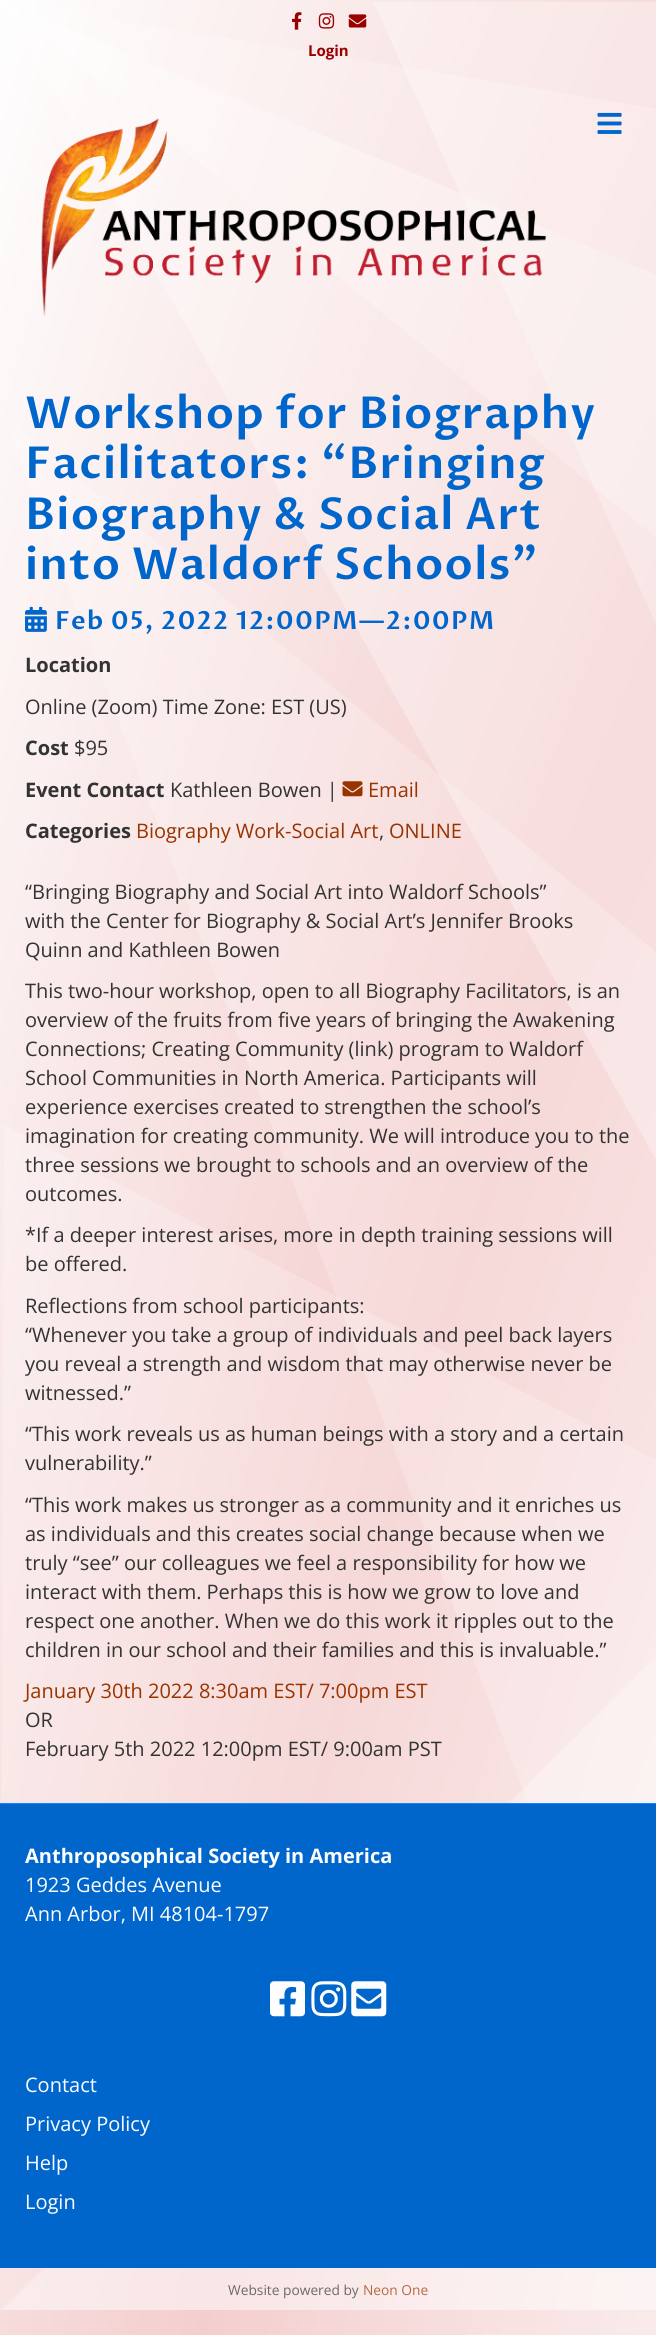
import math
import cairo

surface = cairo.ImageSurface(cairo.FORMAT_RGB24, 656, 2335)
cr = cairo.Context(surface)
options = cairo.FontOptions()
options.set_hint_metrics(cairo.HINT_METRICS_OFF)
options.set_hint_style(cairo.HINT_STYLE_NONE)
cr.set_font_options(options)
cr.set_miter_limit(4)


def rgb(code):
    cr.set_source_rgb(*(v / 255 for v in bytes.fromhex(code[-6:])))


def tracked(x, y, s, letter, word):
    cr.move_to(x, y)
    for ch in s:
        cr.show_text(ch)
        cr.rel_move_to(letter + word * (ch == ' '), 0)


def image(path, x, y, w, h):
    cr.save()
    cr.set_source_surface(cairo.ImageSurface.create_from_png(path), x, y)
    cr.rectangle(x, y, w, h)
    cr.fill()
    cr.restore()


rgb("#ffffff")
cr.paint()
gradient = cairo.RadialGradient(0, 0, 0, 0, 0, 1)
gradient.set_matrix(cairo.Matrix(1 / 2320, 0, 0, 1 / 8176, -1 * 1641 / 2320, -1 * 5781 / 8176))
gradient.add_color_stop_rgba(0, 0.996, 0.996, 0.996, 1)
gradient.add_color_stop_rgba(0.25, 1, 0.906, 0.753, 1)
gradient.add_color_stop_rgba(0.5, 0.996, 0.996, 0.996, 1)
gradient.add_color_stop_rgba(0.75, 0.957, 0.808, 0.808, 1)
gradient.add_color_stop_rgba(1, 0.996, 0.996, 0.996, 1)
cr.set_source(gradient)
cr.rectangle(0, 0, 656, 2335)
cr.fill()
image("img/1.png", 0, 2, 656, 2308)
image("img/2.png", 292, 12, 10, 18)
image("img/3.png", 318, 13, 17, 16)
image("img/4.png", 348, 14, 19, 14)
image("img/5.png", 41, 118, 505, 198)
image("img/6.png", 597, 112, 25, 22)
image("img/7.png", 25, 606, 22, 26)
image("img/8.png", 342, 781, 21, 16)
rgb("#0066cc")
cr.rectangle(0, 1804, 656, 464)
cr.fill()
rgb("#0f87ff")
cr.rectangle(0, 1803, 656, 1)
cr.fill()
image("img/9.png", 270, 1981, 35, 36)
image("img/10.png", 311, 1981, 36, 36)
image("img/11.png", 351, 1981, 36, 36)
cr.select_font_face("Open Sans", cairo.FONT_SLANT_NORMAL, cairo.FONT_WEIGHT_BOLD)
cr.set_font_size(15)
rgb("#990000")
cr.move_to(308, 56)
cr.show_text("Login")
cr.select_font_face("Proza Libre SemiBold")
cr.set_font_size(44)
rgb("#0066cc")
for x, y, s in [
    (25, 428, "Workshop for Biography"),
    (25, 478, "Facilitators: “Bringing"),
    (25, 529, "Biography & Social Art"),
    (25, 579, "into Waldorf Schools”"),
]:
    tracked(x, y, s, 1.25, 0)
cr.set_font_size(25)
tracked(55, 629, "Feb 05, 2022 12:00PM—2:00PM", 1.25, 0)
cr.select_font_face("Open Sans", cairo.FONT_SLANT_NORMAL, cairo.FONT_WEIGHT_BOLD)
cr.set_font_size(20)
rgb("#333333")
cr.move_to(25, 672)
cr.show_text("Location")
cr.select_font_face("Open Sans")
cr.move_to(25, 714)
cr.show_text("Online (Zoom) Time Zone: EST (US)")
cr.select_font_face("Open Sans", cairo.FONT_SLANT_NORMAL, cairo.FONT_WEIGHT_BOLD)
cr.move_to(25, 755)
cr.show_text("Cost")
cr.select_font_face("Open Sans")
cr.move_to(74, 755)
cr.show_text("$95")
cr.select_font_face("Open Sans", cairo.FONT_SLANT_NORMAL, cairo.FONT_WEIGHT_BOLD)
cr.move_to(25, 797)
cr.show_text("Event Contact")
cr.select_font_face("Open Sans")
cr.move_to(170, 797)
cr.show_text("Kathleen Bowen |")
rgb("#993300")
cr.move_to(368, 797)
cr.show_text("Email")
cr.select_font_face("Open Sans", cairo.FONT_SLANT_NORMAL, cairo.FONT_WEIGHT_BOLD)
rgb("#333333")
cr.move_to(25, 838)
cr.show_text("Categories")
cr.select_font_face("Open Sans")
rgb("#993300")
cr.move_to(136, 838)
cr.show_text("Biography Work-Social Art")
rgb("#333333")
cr.move_to(379, 838)
cr.show_text(",")
rgb("#993300")
cr.move_to(389, 838)
cr.show_text("ONLINE")
rgb("#333333")
for x, y, s in [
    (25, 899, "“Bringing Biography and Social Art into Waldorf Schools”"),
    (25, 928, "with the Center for Biography & Social Art’s Jennifer Brooks"),
    (25, 957, "Quinn and Kathleen Bowen"),
    (25, 998, "This two-hour workshop, open to all Biography Facilitators, is an"),
    (25, 1027, "overview of the fruits from five years of bringing the Awakening"),
    (25, 1056, "Connections; Creating Community (link) program to Waldorf"),
    (25, 1085, "School Communities in North America. Participants will"),
    (25, 1114, "experience exercises created to strengthen the school’s"),
    (25, 1143, "imagination for creating community. We will introduce you to the"),
    (25, 1172, "three sessions we brought to schools and an overview of the"),
    (25, 1201, "outcomes."),
    (25, 1242, "*If a deeper interest arises, more in depth training sessions will"),
    (25, 1271, "be offered."),
    (25, 1313, "Reflections from school participants:"),
    (25, 1342, "“Whenever you take a group of individuals and peel back layers"),
    (25, 1371, "you reveal a strength and wisdom that may otherwise never be"),
    (25, 1400, "witnessed.”"),
    (25, 1441, "“This work reveals us as human beings with a story and a certain"),
    (25, 1470, "vulnerability.”"),
    (25, 1512, "“This work makes us stronger as a community and it enriches us"),
    (25, 1541, "as individuals and this creates social change because when we"),
    (25, 1570, "truly “see” our colleagues we feel a responsibility for how we"),
    (25, 1599, "interact with them. Perhaps this is how we grow to love and"),
    (25, 1628, "respect one another. When we do this work it ripples out to the"),
    (25, 1657, "children in our school and their families and this is invaluable.”"),
]:
    cr.move_to(x, y)
    cr.show_text(s)
rgb("#993300")
cr.move_to(25, 1698)
cr.show_text("January 30th 2022 8:30am EST/ 7:00pm EST")
rgb("#333333")
cr.move_to(25, 1727)
cr.show_text("OR")
cr.move_to(25, 1756)
cr.show_text("February 5th 2022 12:00pm EST/ 9:00am PST")
cr.select_font_face("Open Sans", cairo.FONT_SLANT_NORMAL, cairo.FONT_WEIGHT_BOLD)
rgb("#fefefe")
cr.move_to(25, 1863)
cr.show_text("Anthroposophical Society in America")
cr.select_font_face("Open Sans")
for x, y, s in [
    (25, 1892, "1923 Geddes Avenue"),
    (25, 1921, "Ann Arbor, MI 48104-1797"),
    (25, 2092, "Contact"),
    (25, 2131, "Privacy Policy"),
    (25, 2170, "Help"),
    (25, 2209, "Login"),
]:
    cr.move_to(x, y)
    cr.show_text(s)
cr.set_font_size(13.75)
rgb("#6f6969")
cr.move_to(228, 2295)
cr.show_text("Website powered by")
rgb("#b66a47")
cr.move_to(363, 2295)
cr.show_text("Neon One")
surface.write_to_png("page.png")
